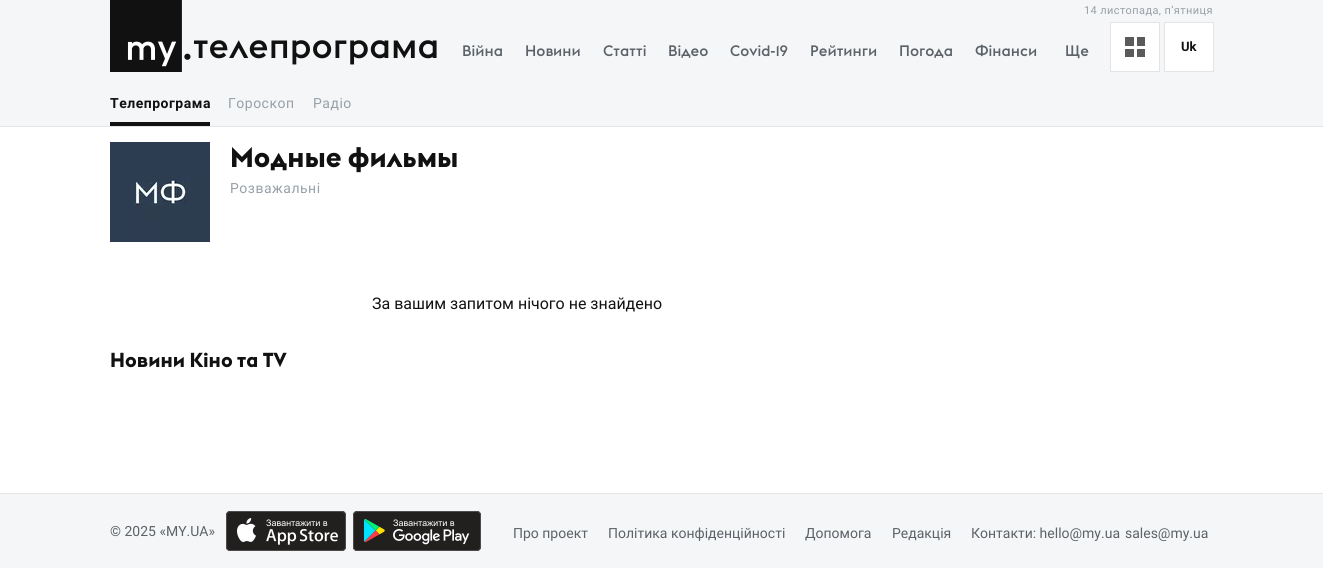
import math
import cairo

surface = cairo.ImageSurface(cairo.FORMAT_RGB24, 1323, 568)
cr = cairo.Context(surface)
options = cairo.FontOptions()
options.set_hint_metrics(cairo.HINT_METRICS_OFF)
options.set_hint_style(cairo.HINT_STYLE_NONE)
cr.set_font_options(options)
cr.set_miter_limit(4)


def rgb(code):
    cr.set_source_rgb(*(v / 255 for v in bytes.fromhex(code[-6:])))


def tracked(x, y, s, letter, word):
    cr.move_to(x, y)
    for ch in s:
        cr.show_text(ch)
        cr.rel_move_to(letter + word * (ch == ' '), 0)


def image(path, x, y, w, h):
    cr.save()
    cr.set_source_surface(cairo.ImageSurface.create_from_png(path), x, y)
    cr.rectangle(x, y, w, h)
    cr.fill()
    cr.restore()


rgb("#ffffff")
cr.paint()
rgb("#f5f6f7")
cr.rectangle(0, 0, 1323, 126)
cr.fill()
rgb("#e3e4e6")
cr.rectangle(0, 126, 1323, 1)
cr.fill()
image("img/1.png", 110, 0, 81, 72)
rgb("#ffffff")
cr.rectangle(1110.5, 22.5, 49, 49)
cr.fill_preserve()
rgb("#e3e4e6")
cr.set_line_width(1)
cr.stroke()
for x, y, w, h, color in [
    (1125, 37, 9, 9, "#5a5a5a"),
    (1137, 37, 8, 9, "#5a5a5a"),
    (1137, 49, 8, 8, "#5a5a5a"),
    (1125, 49, 9, 8, "#5a5a5a"),
]:
    rgb(color)
    cr.rectangle(x, y, w, h)
    cr.fill()
rgb("#ffffff")
cr.rectangle(1164.5, 22.5, 49, 49)
cr.fill_preserve()
rgb("#e3e4e6")
cr.stroke()
rgb("#111111")
cr.rectangle(110, 122, 100, 4)
cr.fill()
image("img/2.png", 110, 142, 100, 100)
rgb("#f5f6f7")
cr.rectangle(0, 494, 1323, 74)
cr.fill()
rgb("#e3e4e6")
cr.rectangle(0, 493, 1323, 1)
cr.fill()
image("img/3.png", 226, 511, 120, 40)
image("img/4.png", 353, 511, 128, 40)
cr.select_font_face("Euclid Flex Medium")
cr.set_font_size(35)
rgb("#111111")
cr.move_to(193, 58)
cr.show_text("телепрограма")
cr.set_font_size(15)
rgb("#5b6268")
for x, y, s in [
    (462, 56, "Війна"),
    (525, 56, "Новини"),
    (603, 56, "Статті"),
    (668, 56, "Відео"),
    (730, 56, "Covid-19"),
    (810, 56, "Рейтинги"),
    (899, 56, "Погода"),
    (975, 56, "Фінанси"),
    (1065, 56, "Ще"),
]:
    cr.move_to(x, y)
    cr.show_text(s)
cr.select_font_face("Roboto")
cr.set_font_size(11)
rgb("#97a0a7")
tracked(1084, 14, "14 листопада, п’ятниця", 0.4, 0)
cr.select_font_face("Roboto", cairo.FONT_SLANT_NORMAL, cairo.FONT_WEIGHT_BOLD)
cr.set_font_size(13)
rgb("#111111")
cr.move_to(1181, 51)
cr.show_text("Uk")
cr.set_font_size(14)
tracked(110, 108, "Телепрограма", 0.5, 0)
cr.select_font_face("Roboto")
rgb("#97a0a7")
tracked(228, 108, "Гороскоп", 0.5, 0)
tracked(313, 108, "Радіо", 0.5, 0)
cr.select_font_face("Euclid Flex", cairo.FONT_SLANT_NORMAL, cairo.FONT_WEIGHT_BOLD)
cr.set_font_size(28)
rgb("#111111")
cr.move_to(230, 167)
cr.show_text("Модные фильмы")
cr.select_font_face("Roboto")
cr.set_font_size(14)
rgb("#97a0a7")
tracked(230, 193, "Розважальні", 0.5, 0)
cr.set_font_size(16)
rgb("#111111")
cr.move_to(372, 309)
cr.show_text("За вашим запитом нічого не знайдено")
cr.select_font_face("Euclid Flex", cairo.FONT_SLANT_NORMAL, cairo.FONT_WEIGHT_BOLD)
cr.set_font_size(20)
cr.move_to(110, 367)
cr.show_text("Новини Кіно та TV")
cr.select_font_face("Roboto")
cr.set_font_size(14)
rgb("#5b6268")
for x, y, s in [
    (110, 536, "© 2025 «MY.UA»"),
    (513, 538, "Про проект"),
    (608, 538, "Політика конфіденційності"),
    (805, 538, "Допомога"),
    (892, 538, "Редакція"),
    (971, 538, "Контакти: hello@my.ua"),
    (1125, 538, "sales@my.ua"),
]:
    cr.move_to(x, y)
    cr.show_text(s)
surface.write_to_png("page.png")
